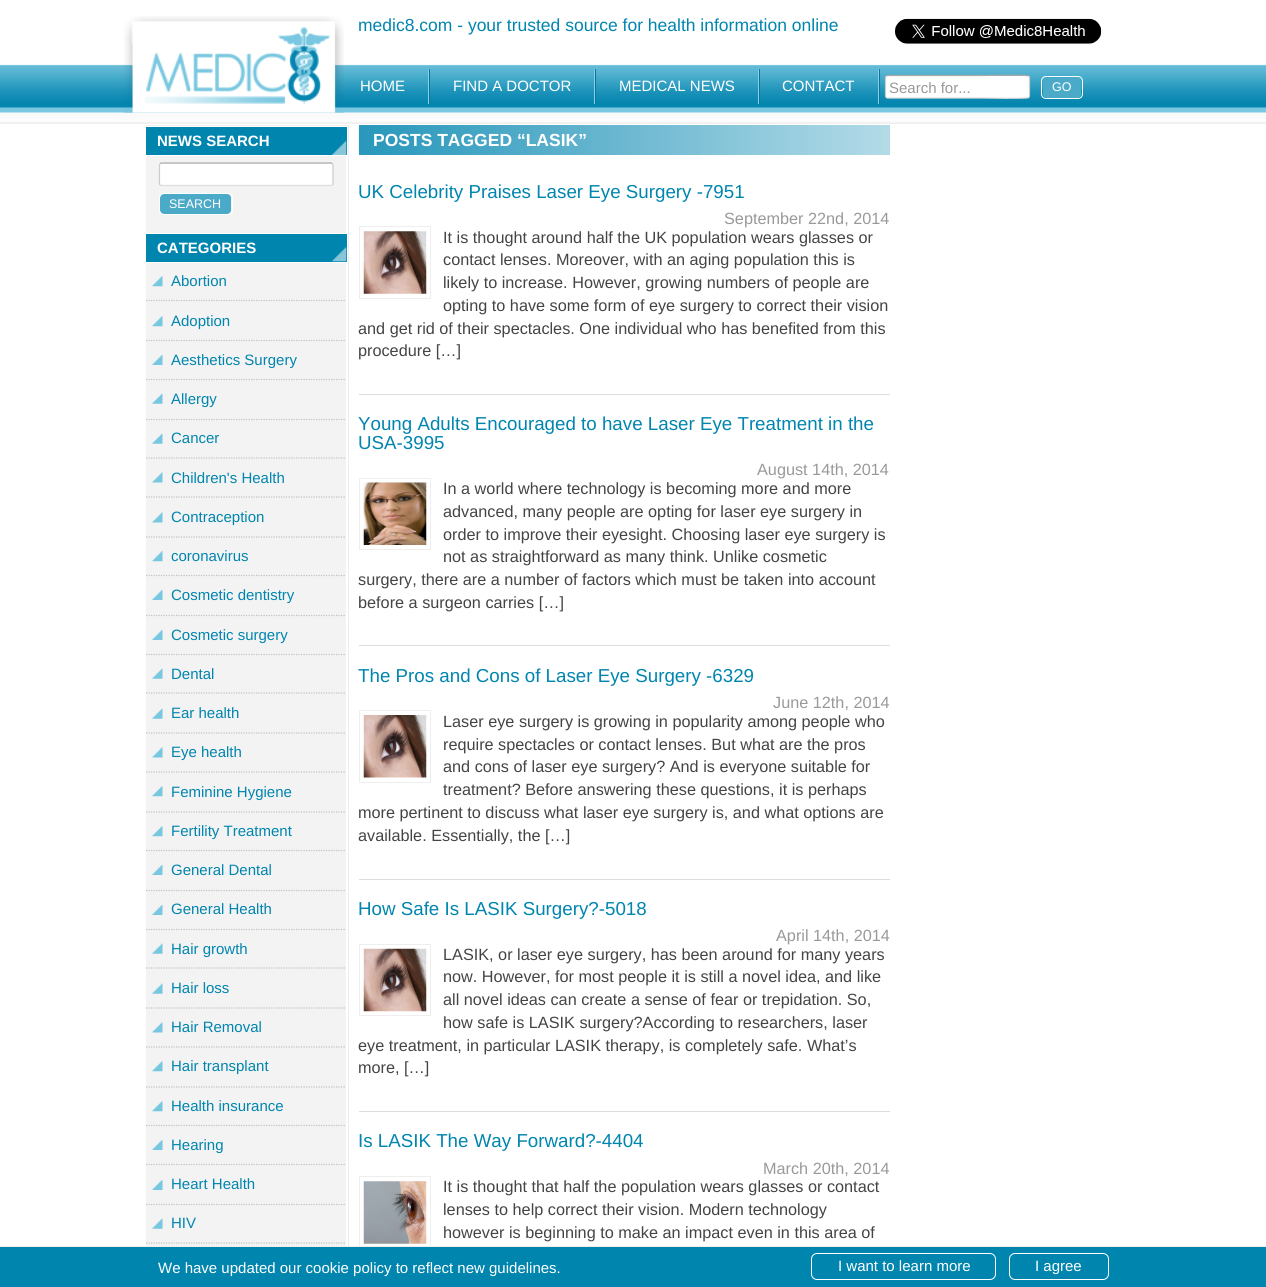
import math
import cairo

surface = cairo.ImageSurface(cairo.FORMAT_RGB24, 1266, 1287)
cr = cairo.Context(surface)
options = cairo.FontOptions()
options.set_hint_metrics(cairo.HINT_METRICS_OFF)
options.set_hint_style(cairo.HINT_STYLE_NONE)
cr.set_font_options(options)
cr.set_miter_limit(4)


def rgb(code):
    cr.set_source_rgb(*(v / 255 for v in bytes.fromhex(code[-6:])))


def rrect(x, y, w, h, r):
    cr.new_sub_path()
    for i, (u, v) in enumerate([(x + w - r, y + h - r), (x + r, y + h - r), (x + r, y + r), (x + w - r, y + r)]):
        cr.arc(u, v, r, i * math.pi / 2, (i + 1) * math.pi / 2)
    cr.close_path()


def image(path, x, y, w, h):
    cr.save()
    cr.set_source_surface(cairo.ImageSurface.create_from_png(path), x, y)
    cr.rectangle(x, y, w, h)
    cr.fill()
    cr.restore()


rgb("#ffffff")
cr.paint()
image("img/1.png", 0, 64, 1266, 60)
image("img/2.png", 123, 16, 221, 97)
image("img/3.png", 895, 18, 207, 26)
for x, y, w, h, color in [
    (879, 69, 1, 35, "#02789e"),
    (428, 69, 1, 35, "#8ecde2"),
    (594, 69, 1, 35, "#8ecde2"),
    (429, 69, 1, 35, "#02789e"),
    (758, 69, 1, 35, "#8ecde2"),
    (595, 69, 1, 35, "#02789e"),
    (878, 69, 1, 35, "#8ecde2"),
    (759, 69, 1, 35, "#02789e"),
]:
    rgb(color)
    cr.rectangle(x, y, w, h)
    cr.fill()
rgb("#ffffff")
rrect(886, 76, 143, 22, 1)
cr.fill()
cr.new_path()
cr.move_to(886, 76)
cr.line_to(887.5, 75.5)
cr.line_to(981, 75.5)
cr.curve_to(984.5, 75.5, 1027.5, 74.5, 1029, 76)
rgb("#aaaaaa")
cr.set_line_width(1.2)
cr.stroke()
cr.new_path()
cr.move_to(1029, 76)
cr.line_to(1029.5, 77.5)
cr.line_to(1029.5, 96)
cr.line_to(1029, 97.5)
rgb("#cccccc")
cr.stroke()
cr.new_path()
cr.move_to(1029, 97.5)
cr.curve_to(1027.5, 99, 984.5, 98, 981, 98)
cr.line_to(887.5, 98)
cr.line_to(886, 97.5)
rgb("#dddddd")
cr.stroke()
cr.new_path()
cr.move_to(886, 97.5)
cr.line_to(885.5, 96)
cr.line_to(885.5, 77.5)
cr.line_to(886, 76)
rgb("#cccccc")
cr.stroke()
rgb("#4baac7")
rrect(1043, 78, 38, 20, 4)
cr.fill()
rrect(1041.5, 76.5, 41, 22, 4.5)
rgb("#ffffff")
cr.set_line_width(1)
cr.stroke()
for x, y, w, h, color in [
    (146, 125, 203, 1, "#eeeeee"),
    (348, 125, 1, 1121, "#eeeeee"),
    (146, 156, 200, 1090, "#f3f3f3"),
    (146, 127, 201, 28, "#0085af"),
]:
    rgb(color)
    cr.rectangle(x, y, w, h)
    cr.fill()
image("img/4.png", 332, 141, 15, 14)
rgb("#ffffff")
rrect(160, 164, 173, 21, 1)
cr.fill()
cr.new_path()
cr.move_to(160, 163.5)
cr.line_to(161, 163)
cr.line_to(331, 163)
cr.line_to(332.5, 163.5)
rgb("#aaaaaa")
cr.set_line_width(1.2)
cr.stroke()
cr.new_path()
cr.move_to(332.5, 163.5)
cr.line_to(333, 165)
cr.line_to(333, 184)
cr.line_to(332.5, 185)
rgb("#cccccc")
cr.stroke()
cr.new_path()
cr.move_to(332.5, 185)
cr.line_to(331, 185.5)
cr.line_to(161, 185.5)
cr.line_to(160, 185)
rgb("#dddddd")
cr.stroke()
cr.new_path()
cr.move_to(160, 185)
cr.line_to(159.5, 184)
cr.line_to(159.5, 165)
cr.line_to(160, 163.5)
rgb("#cccccc")
cr.stroke()
rgb("#4baac7")
rrect(160, 194, 71, 20, 4)
cr.fill()
rrect(159.5, 193.5, 73, 21, 4.5)
rgb("#ffffff")
cr.set_line_width(1)
cr.stroke()
rgb("#0085af")
cr.rectangle(146, 234, 201, 28)
cr.fill()
image("img/5.png", 332, 247, 15, 15)
cr.save()
cr.rectangle(146, 126, 202, 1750)
cr.clip()
cr.rectangle(145.5, 233.5, 202, 29)
rgb("#ffffff")
cr.stroke()
cr.restore()
cr.new_path()
cr.move_to(146, 300.5)
cr.line_to(346, 300.5)
rgb("#c2c2c2")
cr.set_line_width(1.2)
cr.set_dash([1.25, 1.25])
cr.stroke()
image("img/6.png", 152, 276, 11, 11)
cr.new_path()
cr.move_to(146, 340.5)
cr.line_to(346, 340.5)
cr.stroke()
image("img/6.png", 152, 316, 11, 11)
cr.new_path()
cr.move_to(146, 379.5)
cr.line_to(346, 379.5)
cr.stroke()
image("img/7.png", 152, 355, 11, 10)
cr.new_path()
cr.move_to(146, 419.5)
cr.line_to(346, 419.5)
cr.stroke()
image("img/8.png", 152, 393, 11, 11)
cr.new_path()
cr.move_to(146, 458)
cr.line_to(346, 458)
cr.stroke()
image("img/8.png", 152, 433, 11, 11)
cr.new_path()
cr.move_to(146, 497)
cr.line_to(346, 497)
cr.stroke()
image("img/9.png", 152, 472, 11, 11)
cr.new_path()
cr.move_to(146, 537)
cr.line_to(346, 537)
cr.stroke()
image("img/10.png", 152, 512, 11, 11)
cr.new_path()
cr.move_to(146, 575.5)
cr.line_to(346, 575.5)
cr.stroke()
image("img/6.png", 152, 551, 11, 11)
cr.new_path()
cr.move_to(146, 615.5)
cr.line_to(346, 615.5)
cr.stroke()
image("img/7.png", 152, 590, 11, 10)
cr.new_path()
cr.move_to(146, 654.5)
cr.line_to(346, 654.5)
cr.stroke()
image("img/7.png", 152, 630, 11, 10)
cr.new_path()
cr.move_to(146, 693)
cr.line_to(346, 693)
cr.stroke()
image("img/8.png", 152, 668, 11, 11)
cr.new_path()
cr.move_to(146, 733)
cr.line_to(346, 733)
cr.stroke()
image("img/8.png", 152, 708, 11, 11)
cr.new_path()
cr.move_to(146, 772)
cr.line_to(346, 772)
cr.stroke()
image("img/9.png", 152, 747, 11, 11)
cr.new_path()
cr.move_to(146, 812)
cr.line_to(346, 812)
cr.stroke()
image("img/6.png", 152, 786, 11, 11)
cr.new_path()
cr.move_to(146, 850.5)
cr.line_to(346, 850.5)
cr.stroke()
image("img/6.png", 152, 826, 11, 11)
cr.new_path()
cr.move_to(146, 890.5)
cr.line_to(346, 890.5)
cr.stroke()
image("img/7.png", 152, 865, 11, 10)
cr.new_path()
cr.move_to(146, 929.5)
cr.line_to(346, 929.5)
cr.stroke()
image("img/7.png", 152, 905, 11, 10)
cr.new_path()
cr.move_to(146, 968)
cr.line_to(346, 968)
cr.stroke()
image("img/8.png", 152, 943, 11, 11)
cr.new_path()
cr.move_to(146, 1008)
cr.line_to(346, 1008)
cr.stroke()
image("img/8.png", 152, 983, 11, 11)
cr.new_path()
cr.move_to(146, 1047)
cr.line_to(346, 1047)
cr.stroke()
image("img/10.png", 152, 1022, 11, 11)
cr.new_path()
cr.move_to(146, 1087)
cr.line_to(346, 1087)
cr.stroke()
image("img/6.png", 152, 1061, 11, 11)
cr.new_path()
cr.move_to(146, 1125.5)
cr.line_to(346, 1125.5)
cr.stroke()
image("img/6.png", 152, 1101, 11, 11)
cr.new_path()
cr.move_to(146, 1164.5)
cr.line_to(346, 1164.5)
cr.stroke()
image("img/7.png", 152, 1140, 11, 10)
cr.new_path()
cr.move_to(146, 1204.5)
cr.line_to(346, 1204.5)
cr.stroke()
image("img/7.png", 152, 1180, 11, 10)
cr.new_path()
cr.move_to(146, 1243)
cr.line_to(346, 1243)
cr.stroke()
image("img/8.png", 152, 1218, 11, 11)
image("img/11.png", 358, 125, 532, 30)
rgb("#dddddd")
cr.rectangle(359, 394, 531, 1)
cr.fill()
cr.rectangle(359.5, 226.5, 71, 72)
rgb("#eeeeee")
cr.set_line_width(1)
cr.set_dash([])
cr.stroke()
image("img/12.png", 363, 231, 64, 63)
rgb("#dddddd")
cr.rectangle(359, 645, 531, 1)
cr.fill()
cr.rectangle(359.5, 478.5, 71, 71)
rgb("#eeeeee")
cr.stroke()
image("img/13.png", 363, 482, 64, 63)
rgb("#dddddd")
cr.rectangle(359, 879, 531, 1)
cr.fill()
cr.rectangle(359.5, 710.5, 71, 72)
rgb("#eeeeee")
cr.stroke()
image("img/14.png", 363, 715, 64, 63)
rgb("#dddddd")
cr.rectangle(359, 1111, 531, 1)
cr.fill()
cr.rectangle(359.5, 944.5, 71, 71)
rgb("#eeeeee")
cr.stroke()
image("img/15.png", 363, 948, 64, 64)
cr.rectangle(359.5, 1176.5, 71, 72)
cr.stroke()
image("img/16.png", 363, 1181, 64, 63)
rgb("#0085af")
cr.rectangle(0, 1247, 1266, 40)
cr.fill()
rgb("#eeeeee")
cr.rectangle(0, 1246, 1266, 1)
cr.fill()
rrect(811.5, 1253.5, 184, 26, 5.5)
rgb("#ffffff")
cr.stroke()
rrect(1009.5, 1253.5, 99, 26, 5.5)
cr.stroke()
cr.select_font_face("Liberation Sans")
cr.set_font_size(17.5)
rgb("#0085af")
cr.move_to(358, 31)
cr.show_text("medic8.com - your trusted source for health information online")
cr.set_font_size(15)
rgb("#ffffff")
for x, y, s in [
    (360, 91, "HOME"),
    (453, 91, "FIND A DOCTOR"),
    (619, 91, "MEDICAL NEWS"),
    (782, 91, "CONTACT"),
]:
    cr.move_to(x, y)
    cr.show_text(s)
rgb("#999999")
cr.move_to(889, 93)
cr.show_text("Search for...")
cr.set_font_size(12.5)
rgb("#ffffff")
cr.move_to(1052, 91)
cr.show_text("GO")
cr.select_font_face("Liberation Sans", cairo.FONT_SLANT_NORMAL, cairo.FONT_WEIGHT_BOLD)
cr.set_font_size(15)
cr.move_to(157, 146)
cr.show_text("NEWS SEARCH")
cr.select_font_face("Liberation Sans")
cr.set_font_size(12.5)
cr.move_to(169, 208)
cr.show_text("SEARCH")
cr.select_font_face("Liberation Sans", cairo.FONT_SLANT_NORMAL, cairo.FONT_WEIGHT_BOLD)
cr.set_font_size(15)
cr.move_to(157, 253)
cr.show_text("CATEGORIES")
cr.select_font_face("Liberation Sans")
rgb("#0085af")
for x, y, s in [
    (171, 286, "Abortion"),
    (171, 326, "Adoption"),
    (171, 365, "Aesthetics Surgery"),
    (171, 404, "Allergy"),
    (171, 443, "Cancer"),
    (171, 483, "Children's Health"),
    (171, 522, "Contraception"),
    (171, 561, "coronavirus"),
    (171, 600, "Cosmetic dentistry"),
    (171, 640, "Cosmetic surgery"),
    (171, 679, "Dental"),
    (171, 718, "Ear health"),
    (171, 757, "Eye health"),
    (171, 797, "Feminine Hygiene"),
    (171, 836, "Fertility Treatment"),
    (171, 875, "General Dental"),
    (171, 914, "General Health"),
    (171, 954, "Hair growth"),
    (171, 993, "Hair loss"),
    (171, 1032, "Hair Removal"),
    (171, 1071, "Hair transplant"),
    (171, 1111, "Health insurance"),
    (171, 1150, "Hearing"),
    (171, 1189, "Heart Health"),
    (171, 1228, "HIV"),
]:
    cr.move_to(x, y)
    cr.show_text(s)
cr.select_font_face("Liberation Sans", cairo.FONT_SLANT_NORMAL, cairo.FONT_WEIGHT_BOLD)
cr.set_font_size(17.5)
rgb("#ffffff")
cr.move_to(373, 146)
cr.show_text("POSTS TAGGED “LASIK”")
cr.select_font_face("Liberation Sans")
cr.set_font_size(18.75)
rgb("#0085af")
cr.move_to(358, 198)
cr.show_text("UK Celebrity Praises Laser Eye Surgery -7951")
cr.set_font_size(16.25)
rgb("#999999")
cr.move_to(724, 224)
cr.show_text("September 22nd, 2014")
rgb("#444444")
for x, y, s in [
    (443, 243, "It is thought around half the UK population wears glasses or"),
    (443, 265, "contact lenses. Moreover, with an aging population this is"),
    (443, 288, "likely to increase. However, growing numbers of people are"),
    (443, 311, "opting to have some form of eye surgery to correct their vision"),
    (358, 334, "and get rid of their spectacles. One individual who has benefited from this"),
    (358, 356, "procedure […]"),
]:
    cr.move_to(x, y)
    cr.show_text(s)
cr.set_font_size(18.75)
rgb("#0085af")
cr.move_to(358, 430)
cr.show_text("Young Adults Encouraged to have Laser Eye Treatment in the")
cr.move_to(358, 449)
cr.show_text("USA-3995")
cr.set_font_size(16.25)
rgb("#999999")
cr.move_to(757, 475)
cr.show_text("August 14th, 2014")
rgb("#444444")
for x, y, s in [
    (443, 494, "In a world where technology is becoming more and more"),
    (443, 517, "advanced, many people are opting for laser eye surgery in"),
    (443, 540, "order to improve their eyesight. Choosing laser eye surgery is"),
    (443, 562, "not as straightforward as many think. Unlike cosmetic"),
    (358, 585, "surgery, there are a number of factors which must be taken into account"),
    (358, 608, "before a surgeon carries […]"),
]:
    cr.move_to(x, y)
    cr.show_text(s)
cr.set_font_size(18.75)
rgb("#0085af")
cr.move_to(358, 682)
cr.show_text("The Pros and Cons of Laser Eye Surgery -6329")
cr.set_font_size(16.25)
rgb("#999999")
cr.move_to(773, 708)
cr.show_text("June 12th, 2014")
rgb("#444444")
for x, y, s in [
    (443, 727, "Laser eye surgery is growing in popularity among people who"),
    (443, 750, "require spectacles or contact lenses. But what are the pros"),
    (443, 772, "and cons of laser eye surgery? And is everyone suitable for"),
    (443, 795, "treatment? Before answering these questions, it is perhaps"),
    (358, 818, "more pertinent to discuss what laser eye surgery is, and what options are"),
    (358, 841, "available. Essentially, the […]"),
]:
    cr.move_to(x, y)
    cr.show_text(s)
cr.set_font_size(18.75)
rgb("#0085af")
cr.move_to(358, 915)
cr.show_text("How Safe Is LASIK Surgery?-5018")
cr.set_font_size(16.25)
rgb("#999999")
cr.move_to(776, 941)
cr.show_text("April 14th, 2014")
rgb("#444444")
for x, y, s in [
    (443, 960, "LASIK, or laser eye surgery, has been around for many years"),
    (443, 982, "now. However, for most people it is still a novel idea, and like"),
    (443, 1005, "all novel ideas can create a sense of fear or trepidation. So,"),
    (443, 1028, "how safe is LASIK surgery?According to researchers, laser"),
    (358, 1051, "eye treatment, in particular LASIK therapy, is completely safe. What’s"),
    (358, 1073, "more, […]"),
]:
    cr.move_to(x, y)
    cr.show_text(s)
cr.set_font_size(18.75)
rgb("#0085af")
cr.move_to(358, 1147)
cr.show_text("Is LASIK The Way Forward?-4404")
cr.set_font_size(16.25)
rgb("#999999")
cr.move_to(763, 1174)
cr.show_text("March 20th, 2014")
rgb("#444444")
for x, y, s in [
    (443, 1192, "It is thought that half the population wears glasses or contact"),
    (443, 1215, "lenses to help correct their vision. Modern technology"),
    (443, 1238, "however is beginning to make an impact even in this area of"),
]:
    cr.move_to(x, y)
    cr.show_text(s)
cr.set_font_size(15)
rgb("#ffffff")
for x, y, s in [
    (158, 1273, "We have updated our cookie policy to reflect new guidelines."),
    (838, 1271, "I want to learn more"),
    (1035, 1271, "I agree"),
]:
    cr.move_to(x, y)
    cr.show_text(s)
surface.write_to_png("page.png")
